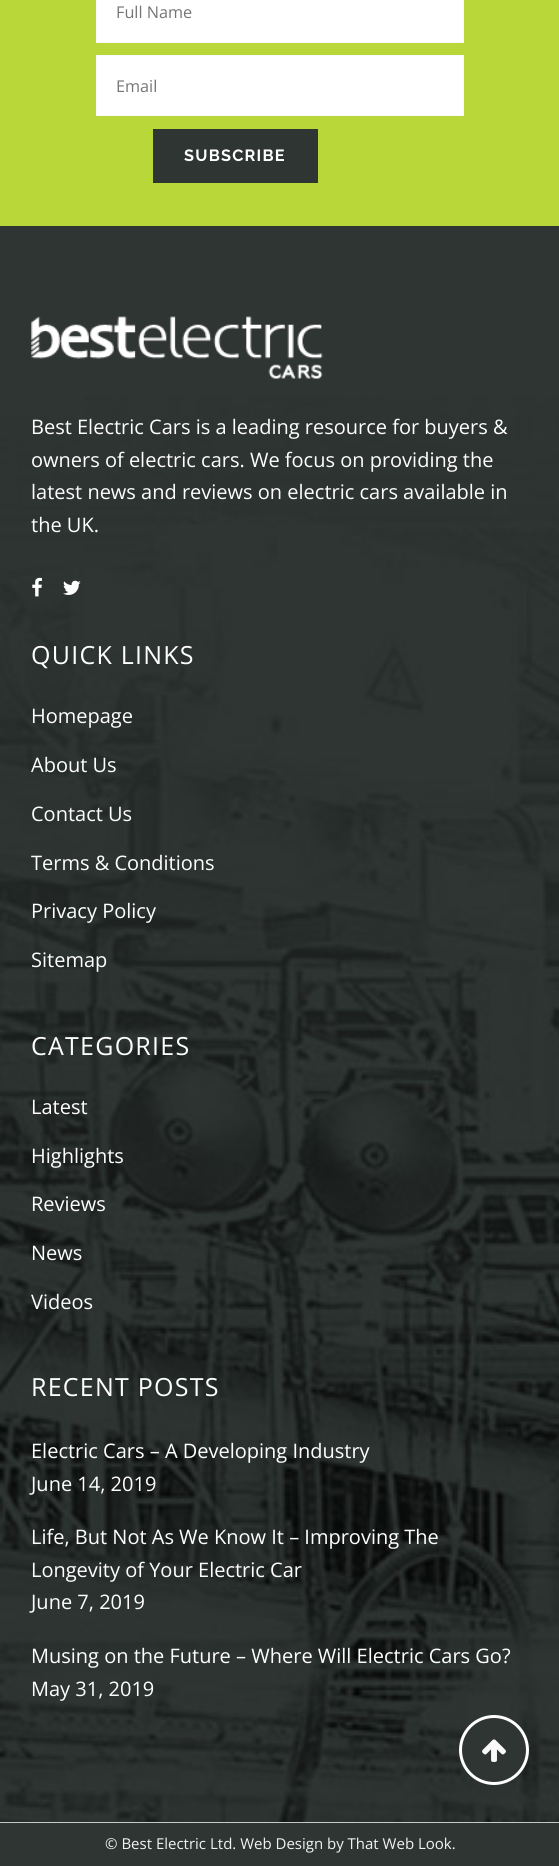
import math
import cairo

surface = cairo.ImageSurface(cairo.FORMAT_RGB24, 559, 1866)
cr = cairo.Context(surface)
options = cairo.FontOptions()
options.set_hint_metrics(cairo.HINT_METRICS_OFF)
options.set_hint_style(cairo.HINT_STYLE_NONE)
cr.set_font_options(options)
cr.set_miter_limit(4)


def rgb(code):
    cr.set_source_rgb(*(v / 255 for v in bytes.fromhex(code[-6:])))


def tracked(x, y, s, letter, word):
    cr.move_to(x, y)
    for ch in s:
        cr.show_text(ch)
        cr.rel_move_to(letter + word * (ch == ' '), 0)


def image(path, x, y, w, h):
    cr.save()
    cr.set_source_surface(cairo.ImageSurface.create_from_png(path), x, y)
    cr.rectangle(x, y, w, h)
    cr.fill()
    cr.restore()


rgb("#ffffff")
cr.paint()
rgb("#bad739")
cr.rectangle(0, 0, 559, 226)
cr.fill()
rgb("#ffffff")
cr.rectangle(96.5, -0.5, 367, 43)
cr.fill_preserve()
rgb("#fafafa")
cr.set_line_width(1)
cr.stroke()
rgb("#ffffff")
cr.rectangle(96.5, 55.5, 367, 60)
cr.fill_preserve()
rgb("#fafafa")
cr.stroke()
rgb("#2e3532")
cr.rectangle(153, 129, 165, 54)
cr.fill()
image("img/1.png", 0, 226, 559, 1597)
image("img/2.png", 31, 316, 292, 63)
image("img/3.png", 32, 577, 10, 20)
image("img/4.png", 63, 580, 18, 15)
cr.rectangle(0, 1823, 559, 43)
cr.fill()
cr.arc(494, 1750, 33.5, 0, 2 * math.pi)
cr.fill_preserve()
rgb("#ffffff")
cr.set_line_width(3)
cr.stroke()
image("img/5.png", 482, 1739, 24, 23)
cr.select_font_face("Open Sans")
cr.set_font_size(16.25)
rgb("#757575")
cr.move_to(116, 18)
cr.show_text("Full Name")
cr.move_to(116, 92)
cr.show_text("Email")
cr.select_font_face("Raleway", cairo.FONT_SLANT_NORMAL, cairo.FONT_WEIGHT_BOLD)
rgb("#ffffff")
tracked(184, 161, "SUBSCRIBE", 1.25, 0)
cr.select_font_face("Open Sans")
cr.set_font_size(20)
for x, y, s in [
    (31, 434, "Best Electric Cars is a leading resource for buyers &"),
    (31, 467, "owners of electric cars. We focus on providing the"),
    (31, 499, "latest news and reviews on electric cars available in"),
    (31, 532, "the UK."),
]:
    cr.move_to(x, y)
    cr.show_text(s)
cr.set_font_size(25)
tracked(31, 664, "QUICK LINKS", 1.25, 0)
cr.set_font_size(20)
for x, y, s in [
    (31, 723, "Homepage"),
    (31, 772, "About Us"),
    (31, 821, "Contact Us"),
    (31, 870, "Terms & Conditions"),
    (31, 918, "Privacy Policy"),
    (31, 967, "Sitemap"),
]:
    cr.move_to(x, y)
    cr.show_text(s)
cr.set_font_size(25)
tracked(31, 1055, "CATEGORIES", 1.25, 0)
cr.set_font_size(20)
for x, y, s in [
    (31, 1114, "Latest"),
    (31, 1163, "Highlights"),
    (31, 1211, "Reviews"),
    (31, 1260, "News"),
    (31, 1309, "Videos"),
]:
    cr.move_to(x, y)
    cr.show_text(s)
cr.set_font_size(25)
tracked(31, 1396, "RECENT POSTS", 1.25, 0)
cr.set_font_size(20)
for x, y, s in [
    (31, 1458, "Electric Cars – A Developing Industry"),
    (31, 1491, "June 14, 2019"),
    (31, 1544, "Life, But Not As We Know It – Improving The"),
    (31, 1577, "Longevity of Your Electric Car"),
    (31, 1609, "June 7, 2019"),
    (31, 1663, "Musing on the Future – Where Will Electric Cars Go?"),
    (31, 1696, "May 31, 2019"),
]:
    cr.move_to(x, y)
    cr.show_text(s)
cr.set_font_size(15)
rgb("#f2f2f2")
cr.move_to(105, 1849)
cr.show_text("© Best Electric Ltd. Web Design by That Web Look.")
surface.write_to_png("page.png")
